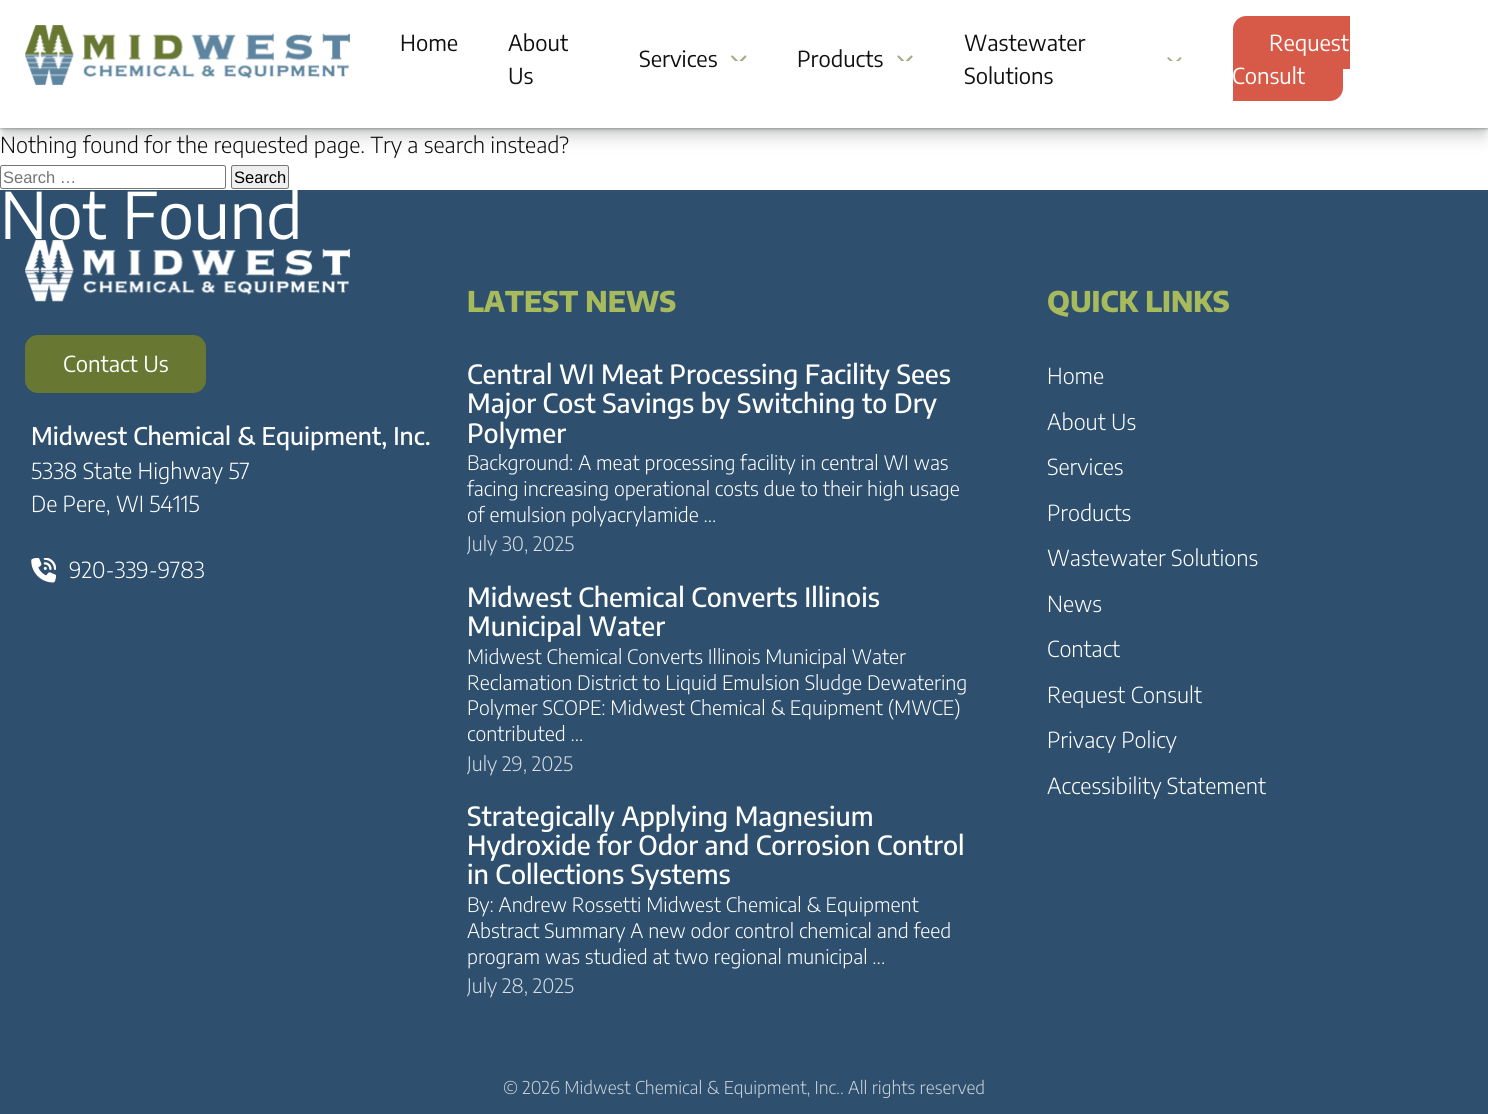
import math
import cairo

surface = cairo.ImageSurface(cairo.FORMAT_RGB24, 1488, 1114)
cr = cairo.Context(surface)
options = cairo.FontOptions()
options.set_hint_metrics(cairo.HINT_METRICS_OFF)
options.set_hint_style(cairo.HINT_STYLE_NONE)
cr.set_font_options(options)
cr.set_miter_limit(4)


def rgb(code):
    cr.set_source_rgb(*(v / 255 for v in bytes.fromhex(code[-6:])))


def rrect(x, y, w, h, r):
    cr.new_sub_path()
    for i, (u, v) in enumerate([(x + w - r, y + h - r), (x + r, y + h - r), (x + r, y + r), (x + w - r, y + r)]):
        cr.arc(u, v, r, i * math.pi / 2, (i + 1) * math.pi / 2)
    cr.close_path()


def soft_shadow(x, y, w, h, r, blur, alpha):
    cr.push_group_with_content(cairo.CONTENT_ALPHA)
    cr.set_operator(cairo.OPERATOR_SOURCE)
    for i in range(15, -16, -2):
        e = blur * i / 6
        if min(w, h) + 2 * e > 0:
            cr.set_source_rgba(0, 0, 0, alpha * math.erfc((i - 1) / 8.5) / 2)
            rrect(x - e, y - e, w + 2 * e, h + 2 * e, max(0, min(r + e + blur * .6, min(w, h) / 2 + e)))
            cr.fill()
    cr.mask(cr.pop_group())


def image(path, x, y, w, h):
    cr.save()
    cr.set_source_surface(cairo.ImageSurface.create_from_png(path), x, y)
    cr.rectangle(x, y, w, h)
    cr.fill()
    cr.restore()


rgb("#ffffff")
cr.paint()
rgb("#696b6d")
soft_shadow(3, 6, 1482, 132, 0, 7.5, 0.25)
soft_shadow(3, -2, 1483, 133, 0, 3, 0.25)
soft_shadow(1, -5, 1487, 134, 0, 1.5, 0.25)
soft_shadow(0, -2, 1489, 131, 0, 0.5, 0.25)
rgb("#ffffff")
cr.rectangle(0, 0, 1488, 128)
cr.fill()
image("img/1.png", 25, 25, 325, 60)
image("img/2.png", 731, 55, 16, 6)
image("img/3.png", 897, 55, 16, 6)
image("img/4.png", 1167, 57, 15, 4)
rgb("#d75948")
cr.new_path()
cr.move_to(1246, 16)
cr.line_to(1350, 16)
cr.line_to(1350, 69)
cr.line_to(1246, 69)
cr.curve_to(1239, 69, 1233, 63, 1233, 56)
cr.line_to(1233, 29)
cr.curve_to(1233, 22, 1239, 16, 1246, 16)
cr.close_path()
cr.fill()
cr.new_path()
cr.move_to(1233, 49)
cr.line_to(1330, 49)
cr.curve_to(1337, 49, 1343, 55, 1343, 62)
cr.line_to(1343, 88)
cr.curve_to(1343, 95, 1337, 101, 1330, 101)
cr.line_to(1233, 101)
cr.close_path()
cr.fill()
rrect(0.5, 165.5, 225, 23, 2)
rgb("#767676")
cr.set_line_width(1)
cr.stroke()
rgb("#efefef")
rrect(231.5, 165.5, 57, 23, 2)
cr.fill_preserve()
rgb("#767676")
cr.stroke()
rgb("#2e506e")
cr.rectangle(0, 190, 1488, 924)
cr.fill()
image("img/5.png", 25, 240, 325, 62)
rgb("#687833")
rrect(25, 335, 181, 58, 13)
cr.fill()
image("img/6.png", 31, 558, 25, 25)
cr.select_font_face("Encode Sans")
cr.set_font_size(22)
rgb("#111111")
for x, y, s in [
    (400, 51, "Home"),
    (508, 51, "About"),
    (508, 84, "Us"),
    (639, 67, "Services"),
    (797, 67, "Products"),
    (964, 51, "Wastewater"),
    (964, 84, "Solutions"),
]:
    cr.move_to(x, y)
    cr.show_text(s)
rgb("#ffffff")
cr.move_to(1269, 51)
cr.show_text("Request")
cr.move_to(1232, 84)
cr.show_text("Consult")
cr.select_font_face("Encode Sans Light")
rgb("#111111")
cr.move_to(0, 153)
cr.show_text("Nothing found for the requested page. Try a search instead?")
cr.select_font_face("Liberation Sans")
cr.set_font_size(16.5)
rgb("#757575")
cr.move_to(3, 183)
cr.show_text("Search …")
rgb("#000000")
cr.move_to(234, 183)
cr.show_text("Search")
cr.select_font_face("Encode Sans")
cr.set_font_size(64)
rgb("#ffffff")
cr.move_to(0, 239)
cr.show_text("Not Found")
cr.set_font_size(22)
cr.move_to(63, 372)
cr.show_text("Contact Us")
cr.select_font_face("Encode Sans Medium")
cr.set_font_size(24.25)
cr.move_to(31, 445)
cr.show_text("Midwest Chemical & Equipment, Inc.")
cr.select_font_face("Encode Sans Light")
cr.set_font_size(22)
for x, y, s in [
    (31, 479, "5338 State Highway 57"),
    (31, 512, "De Pere, WI 54115"),
    (69, 578, "920-339-9783"),
]:
    cr.move_to(x, y)
    cr.show_text(s)
cr.select_font_face("Encode Sans ExtraBold")
cr.set_font_size(28.5)
rgb("#a7ba5c")
cr.move_to(467, 312)
cr.show_text("LATEST NEWS")
cr.select_font_face("Encode Sans Medium")
cr.set_font_size(26.4)
rgb("#ffffff")
for x, y, s in [
    (467, 384, "Central WI Meat Processing Facility Sees"),
    (467, 413, "Major Cost Savings by Switching to Dry"),
    (467, 443, "Polymer"),
]:
    cr.move_to(x, y)
    cr.show_text(s)
cr.select_font_face("Encode Sans Light")
cr.set_font_size(19.8)
for x, y, s in [
    (467, 470, "Background: A meat processing facility in central WI was"),
    (467, 496, "facing increasing operational costs due to their high usage"),
    (467, 522, "of emulsion polyacrylamide ..."),
]:
    cr.move_to(x, y)
    cr.show_text(s)
rgb("#d5dce2")
cr.move_to(467, 551)
cr.show_text("July 30, 2025")
cr.select_font_face("Encode Sans Medium")
cr.set_font_size(26.4)
rgb("#ffffff")
cr.move_to(467, 607)
cr.show_text("Midwest Chemical Converts Illinois")
cr.move_to(467, 636)
cr.show_text("Municipal Water")
cr.select_font_face("Encode Sans Light")
cr.set_font_size(19.8)
for x, y, s in [
    (467, 664, "Midwest Chemical Converts Illinois Municipal Water"),
    (467, 690, "Reclamation District to Liquid Emulsion Sludge Dewatering"),
    (467, 715, "Polymer SCOPE: Midwest Chemical & Equipment (MWCE)"),
    (467, 741, "contributed ..."),
]:
    cr.move_to(x, y)
    cr.show_text(s)
rgb("#d5dce2")
cr.move_to(467, 771)
cr.show_text("July 29, 2025")
cr.select_font_face("Encode Sans Medium")
cr.set_font_size(26.4)
rgb("#ffffff")
for x, y, s in [
    (467, 826, "Strategically Applying Magnesium"),
    (467, 855, "Hydroxide for Odor and Corrosion Control"),
    (467, 884, "in Collections Systems"),
]:
    cr.move_to(x, y)
    cr.show_text(s)
cr.select_font_face("Encode Sans Light")
cr.set_font_size(19.8)
for x, y, s in [
    (467, 912, "By: Andrew Rossetti Midwest Chemical & Equipment"),
    (467, 938, "Abstract Summary A new odor control chemical and feed"),
    (467, 964, "program was studied at two regional municipal ..."),
]:
    cr.move_to(x, y)
    cr.show_text(s)
rgb("#d5dce2")
cr.move_to(467, 993)
cr.show_text("July 28, 2025")
cr.select_font_face("Encode Sans ExtraBold")
cr.set_font_size(28.5)
rgb("#a7ba5c")
cr.move_to(1047, 312)
cr.show_text("QUICK LINKS")
cr.select_font_face("Encode Sans Light")
cr.set_font_size(22)
rgb("#ffffff")
for x, y, s in [
    (1047, 384, "Home"),
    (1047, 430, "About Us"),
    (1047, 475, "Services"),
    (1047, 521, "Products"),
    (1047, 566, "Wastewater Solutions"),
    (1047, 612, "News"),
    (1047, 657, "Contact"),
    (1047, 703, "Request Consult"),
    (1047, 748, "Privacy Policy"),
    (1047, 794, "Accessibility Statement"),
]:
    cr.move_to(x, y)
    cr.show_text(s)
cr.set_font_size(17.6)
rgb("#c7d0d8")
cr.move_to(503, 1094)
cr.show_text("© 2026 Midwest Chemical & Equipment, Inc.. All rights reserved")
surface.write_to_png("page.png")
